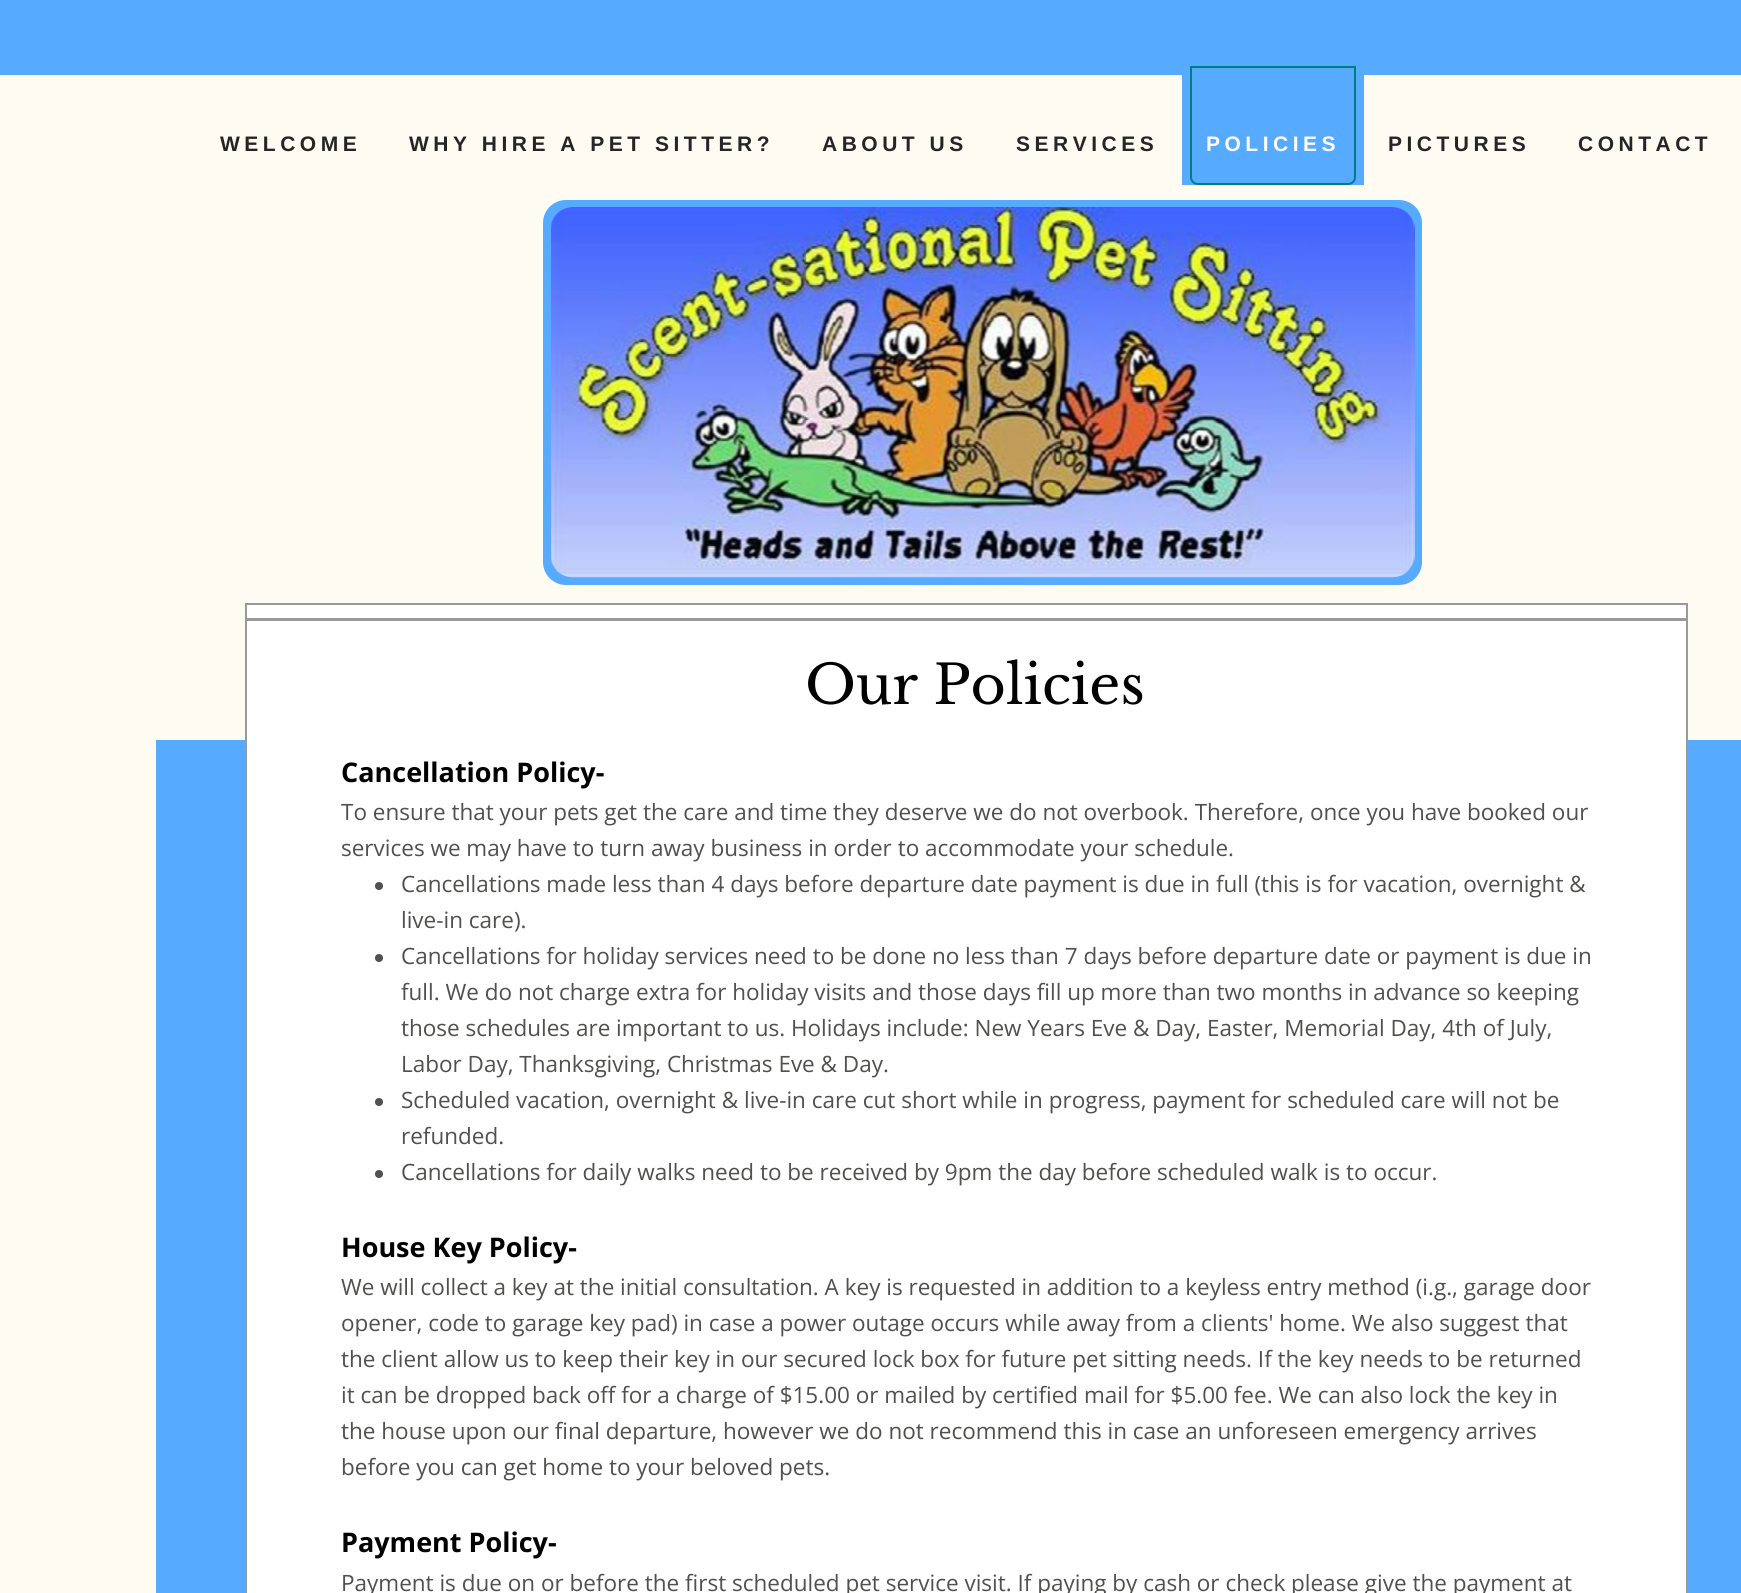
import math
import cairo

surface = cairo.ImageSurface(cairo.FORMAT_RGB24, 1741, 1593)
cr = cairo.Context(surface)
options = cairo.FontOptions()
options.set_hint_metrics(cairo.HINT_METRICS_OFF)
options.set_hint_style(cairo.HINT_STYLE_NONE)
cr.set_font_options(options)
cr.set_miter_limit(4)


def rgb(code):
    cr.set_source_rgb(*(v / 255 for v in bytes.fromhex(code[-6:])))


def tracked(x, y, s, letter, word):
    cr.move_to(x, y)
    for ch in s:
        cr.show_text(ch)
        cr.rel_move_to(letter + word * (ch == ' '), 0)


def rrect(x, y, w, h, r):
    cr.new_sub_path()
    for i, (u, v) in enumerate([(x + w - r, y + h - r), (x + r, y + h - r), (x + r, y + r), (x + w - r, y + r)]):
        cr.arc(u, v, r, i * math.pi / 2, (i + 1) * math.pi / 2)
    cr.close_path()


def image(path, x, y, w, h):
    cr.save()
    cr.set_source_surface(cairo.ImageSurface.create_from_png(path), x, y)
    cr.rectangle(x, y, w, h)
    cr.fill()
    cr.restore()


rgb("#56aaff")
cr.paint()
rgb("#fdfbf2")
cr.rectangle(0, 75, 1741, 1518)
cr.fill()
rgb("#56aaff")
cr.rectangle(1182, 75, 182, 110)
cr.fill()
cr.new_path()
cr.move_to(1191, 67)
cr.line_to(1355, 67)
cr.line_to(1355, 177)
cr.curve_to(1355, 181, 1352, 184, 1348, 184)
cr.line_to(1198, 184)
cr.curve_to(1194, 184, 1191, 181, 1191, 177)
cr.close_path()
rgb("#007f7f")
cr.stroke()
rgb("#56aaff")
rrect(547, 204, 871, 377, 19)
cr.fill_preserve()
cr.set_line_width(8)
cr.stroke()
image("img/1.png", 551, 207, 864, 371)
cr.rectangle(156, 740, 1585, 853)
cr.fill()
rgb("#ffffff")
cr.rectangle(246, 604, 1441, 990)
cr.fill_preserve()
rgb("#999999")
cr.set_line_width(2)
cr.stroke()
cr.rectangle(246, 618, 1442, 3)
cr.fill()
rgb("#50504e")
cr.arc(379, 886, 4, 0, 2 * math.pi)
cr.fill()
cr.arc(379, 958, 4, 0, 2 * math.pi)
cr.fill()
cr.arc(379, 1102, 4, 0, 2 * math.pi)
cr.fill()
cr.arc(379, 1174, 4, 0, 2 * math.pi)
cr.fill()
cr.select_font_face("Liberation Sans", cairo.FONT_SLANT_NORMAL, cairo.FONT_WEIGHT_BOLD)
cr.set_font_size(21)
rgb("#252525")
for x, y, s in [
    (220, 151, "WELCOME"),
    (409, 151, "WHY HIRE A PET SITTER?"),
    (822, 151, "ABOUT US"),
    (1016, 151, "SERVICES"),
]:
    tracked(x, y, s, 4.5, 0)
rgb("#ffffff")
tracked(1206, 151, "POLICIES", 4.5, 0)
rgb("#252525")
tracked(1388, 151, "PICTURES", 4.5, 0)
tracked(1578, 151, "CONTACT", 4.5, 0)
cr.select_font_face("Libre Baskerville")
cr.set_font_size(54)
rgb("#000000")
cr.move_to(805, 704)
cr.show_text("Our Policies")
cr.select_font_face("Open Sans", cairo.FONT_SLANT_NORMAL, cairo.FONT_WEIGHT_BOLD)
cr.set_font_size(27)
cr.move_to(341, 782)
cr.show_text("Cancellation Policy-")
cr.select_font_face("Open Sans")
cr.set_font_size(22.5)
rgb("#50504e")
for x, y, s in [
    (341, 820, "To ensure that your pets get the care and time they deserve we do not overbook. Therefore, once you have booked our"),
    (341, 856, "services we may have to turn away business in order to accommodate your schedule."),
    (401, 892, "Cancellations made less than 4 days before departure date payment is due in full (this is for vacation, overnight &"),
    (401, 928, "live-in care)."),
    (401, 964, "Cancellations for holiday services need to be done no less than 7 days before departure date or payment is due in"),
    (401, 1000, "full. We do not charge extra for holiday visits and those days fill up more than two months in advance so keeping"),
    (401, 1036, "those schedules are important to us. Holidays include: New Years Eve & Day, Easter, Memorial Day, 4th of July,"),
    (401, 1072, "Labor Day, Thanksgiving, Christmas Eve & Day."),
    (401, 1108, "Scheduled vacation, overnight & live-in care cut short while in progress, payment for scheduled care will not be"),
    (401, 1144, "refunded."),
    (401, 1180, "Cancellations for daily walks need to be received by 9pm the day before scheduled walk is to occur."),
]:
    cr.move_to(x, y)
    cr.show_text(s)
cr.select_font_face("Open Sans", cairo.FONT_SLANT_NORMAL, cairo.FONT_WEIGHT_BOLD)
cr.set_font_size(27)
rgb("#000000")
cr.move_to(341, 1257)
cr.show_text("House Key Policy-")
cr.select_font_face("Open Sans")
cr.set_font_size(22.5)
rgb("#50504e")
for x, y, s in [
    (341, 1295, "We will collect a key at the initial consultation. A key is requested in addition to a keyless entry method (i.g., garage door"),
    (341, 1331, "opener, code to garage key pad) in case a power outage occurs while away from a clients' home. We also suggest that"),
    (341, 1367, "the client allow us to keep their key in our secured lock box for future pet sitting needs. If the key needs to be returned"),
    (341, 1403, "it can be dropped back off for a charge of $15.00 or mailed by certified mail for $5.00 fee. We can also lock the key in"),
    (341, 1439, "the house upon our final departure, however we do not recommend this in case an unforeseen emergency arrives"),
    (341, 1475, "before you can get home to your beloved pets."),
]:
    cr.move_to(x, y)
    cr.show_text(s)
cr.select_font_face("Open Sans", cairo.FONT_SLANT_NORMAL, cairo.FONT_WEIGHT_BOLD)
cr.set_font_size(27)
rgb("#000000")
cr.move_to(341, 1552)
cr.show_text("Payment Policy-")
cr.select_font_face("Open Sans")
cr.set_font_size(22.5)
rgb("#50504e")
cr.move_to(341, 1591)
cr.show_text("Payment is due on or before the first scheduled pet service visit. If paying by cash or check please give the payment at")
surface.write_to_png("page.png")
